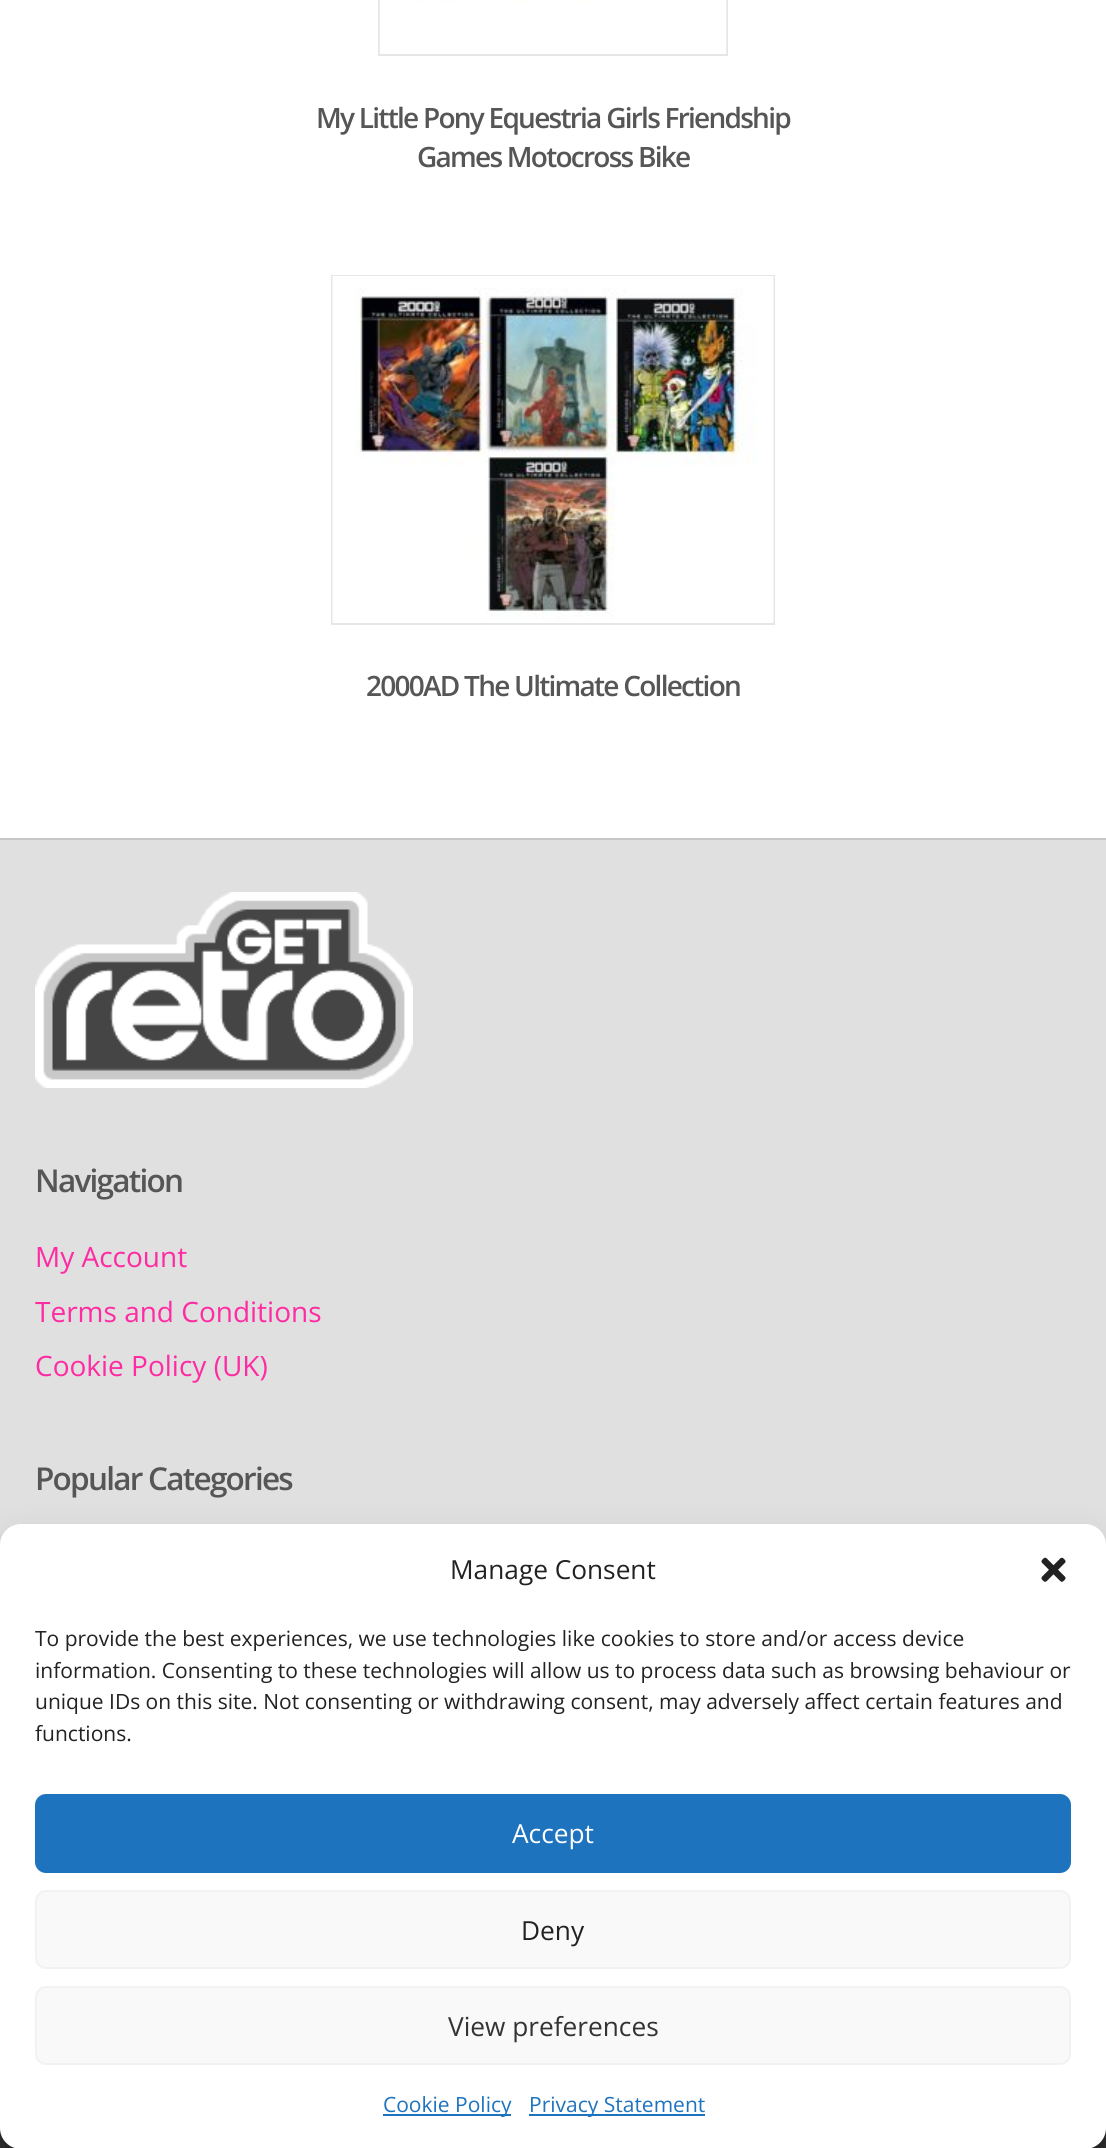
import math
import cairo

surface = cairo.ImageSurface(cairo.FORMAT_RGB24, 1106, 2148)
cr = cairo.Context(surface)
options = cairo.FontOptions()
options.set_hint_metrics(cairo.HINT_METRICS_OFF)
options.set_hint_style(cairo.HINT_STYLE_NONE)
cr.set_font_options(options)
cr.set_miter_limit(4)


def rgb(code):
    cr.set_source_rgb(*(v / 255 for v in bytes.fromhex(code[-6:])))


def tracked(x, y, s, letter, word):
    cr.move_to(x, y)
    for ch in s:
        cr.show_text(ch)
        cr.rel_move_to(letter + word * (ch == ' '), 0)


def rrect(x, y, w, h, r):
    cr.new_sub_path()
    for i, (u, v) in enumerate([(x + w - r, y + h - r), (x + r, y + h - r), (x + r, y + r), (x + w - r, y + r)]):
        cr.arc(u, v, r, i * math.pi / 2, (i + 1) * math.pi / 2)
    cr.close_path()


def soft_shadow(x, y, w, h, r, blur, alpha):
    cr.push_group_with_content(cairo.CONTENT_ALPHA)
    cr.set_operator(cairo.OPERATOR_SOURCE)
    for i in range(15, -16, -2):
        e = blur * i / 6
        if min(w, h) + 2 * e > 0:
            cr.set_source_rgba(0, 0, 0, alpha * math.erfc((i - 1) / 8.5) / 2)
            rrect(x - e, y - e, w + 2 * e, h + 2 * e, max(0, min(r + e + blur * .6, min(w, h) / 2 + e)))
            cr.fill()
    cr.mask(cr.pop_group())


def image(path, x, y, w, h):
    cr.save()
    cr.set_source_surface(cairo.ImageSurface.create_from_png(path), x, y)
    cr.rectangle(x, y, w, h)
    cr.fill()
    cr.restore()


rgb("#ffffff")
cr.paint()
cr.rectangle(379, -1, 348, 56)
rgb("#e6e6e6")
cr.stroke()
image("img/1.png", 379, 0, 348, 54)
cr.rectangle(332, 276, 442, 348)
cr.stroke()
image("img/2.png", 332, 276, 442, 347)
rgb("#e0e0e0")
cr.rectangle(0, 840, 1106, 705)
cr.fill()
rgb("#c7c7c7")
cr.rectangle(0, 838, 1106, 2)
cr.fill()
image("img/3.png", 35, 892, 378, 196)
rgb("#333333")
cr.rectangle(0, 2128, 1106, 20)
cr.fill()
rgb("#000000")
soft_shadow(0, 1535, 1106, 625, 21, 5, 0.23)
soft_shadow(0, 1542, 1106, 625, 21, 17.5, 0.19)
rgb("#ffffff")
rrect(0, 1524, 1106, 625, 21)
cr.fill()
image("img/4.png", 1041, 1557, 25, 25)
rgb("#1e73be")
rrect(36, 1795, 1034, 77, 10)
cr.fill_preserve()
cr.stroke()
rgb("#f9f9f9")
rrect(36, 1891, 1034, 77, 10)
cr.fill_preserve()
rgb("#f2f2f2")
cr.stroke()
rgb("#f9f9f9")
rrect(36, 1987, 1034, 77, 10)
cr.fill_preserve()
rgb("#f2f2f2")
cr.stroke()
rgb("#1e73be")
cr.rectangle(383, 2114, 128, 2)
cr.fill()
cr.rectangle(529, 2114, 176, 2)
cr.fill()
cr.select_font_face("Open Sans SemiBold")
cr.set_font_size(28)
rgb("#565656")
for x, y, s in [
    (316, 128, "My Little Pony Equestria Girls Friendship"),
    (417, 167, "Games Motocross Bike"),
    (366, 696, "2000AD The Ultimate Collection"),
]:
    tracked(x, y, s, -1.75, 0)
cr.set_font_size(31.5)
tracked(35, 1192, "Navigation", -1.75, 0)
cr.select_font_face("Open Sans")
cr.set_font_size(28)
rgb("#fe2ba2")
for x, y, s in [
    (35, 1267, "My Account"),
    (35, 1322, "Terms and Conditions"),
    (35, 1376, "Cookie Policy (UK)"),
]:
    cr.move_to(x, y)
    cr.show_text(s)
cr.select_font_face("Open Sans SemiBold")
cr.set_font_size(31.5)
rgb("#565656")
tracked(35, 1490, "Popular Categories", -1.75, 0)
cr.select_font_face("Open Sans")
cr.set_font_size(26.25)
rgb("#222222")
cr.move_to(450, 1579)
cr.show_text("Manage Consent")
cr.set_font_size(21)
for x, y, s in [
    (35, 1646, "To provide the best experiences, we use technologies like cookies to store and/or access device"),
    (35, 1678, "information. Consenting to these technologies will allow us to process data such as browsing behaviour or"),
    (35, 1709, "unique IDs on this site. Not consenting or withdrawing consent, may adversely affect certain features and"),
    (35, 1741, "functions."),
]:
    cr.move_to(x, y)
    cr.show_text(s)
cr.set_font_size(26.25)
rgb("#ffffff")
cr.move_to(512, 1843)
cr.show_text("Accept")
rgb("#222222")
cr.move_to(521, 1940)
cr.show_text("Deny")
rgb("#333333")
cr.move_to(448, 2036)
cr.show_text("View preferences")
cr.set_font_size(21)
rgb("#1e73be")
cr.move_to(383, 2112)
cr.show_text("Cookie Policy")
cr.move_to(529, 2112)
cr.show_text("Privacy Statement")
surface.write_to_png("page.png")
